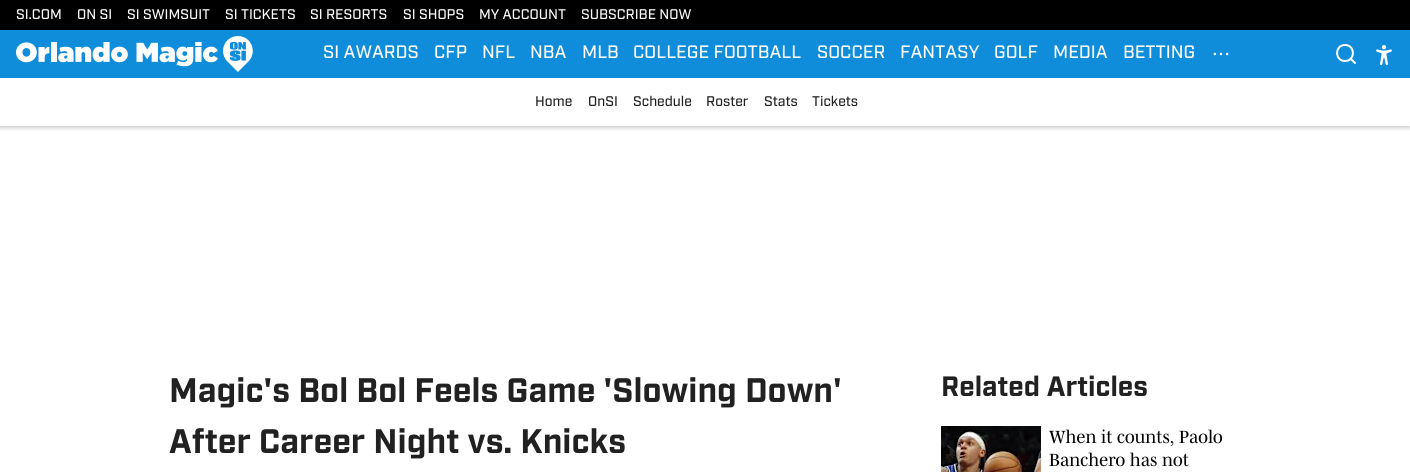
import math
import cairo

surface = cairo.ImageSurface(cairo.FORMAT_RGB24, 1410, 472)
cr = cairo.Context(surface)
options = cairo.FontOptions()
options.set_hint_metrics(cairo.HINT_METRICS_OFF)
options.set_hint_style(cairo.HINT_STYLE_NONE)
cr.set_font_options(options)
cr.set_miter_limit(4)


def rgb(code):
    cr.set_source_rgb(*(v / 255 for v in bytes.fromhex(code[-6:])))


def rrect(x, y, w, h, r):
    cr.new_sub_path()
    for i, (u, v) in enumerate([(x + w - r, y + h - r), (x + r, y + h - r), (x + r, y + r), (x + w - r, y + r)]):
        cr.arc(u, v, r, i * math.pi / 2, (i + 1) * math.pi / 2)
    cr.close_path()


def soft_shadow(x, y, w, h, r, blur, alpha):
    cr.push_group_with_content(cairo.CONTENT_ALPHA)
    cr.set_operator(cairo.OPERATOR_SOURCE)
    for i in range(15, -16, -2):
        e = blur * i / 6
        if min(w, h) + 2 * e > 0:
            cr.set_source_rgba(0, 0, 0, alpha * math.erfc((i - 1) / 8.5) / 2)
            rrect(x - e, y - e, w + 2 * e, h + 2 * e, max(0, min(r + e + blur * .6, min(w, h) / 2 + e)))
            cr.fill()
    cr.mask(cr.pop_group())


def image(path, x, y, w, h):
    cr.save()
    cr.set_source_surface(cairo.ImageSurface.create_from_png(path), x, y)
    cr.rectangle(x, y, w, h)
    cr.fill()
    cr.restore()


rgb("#ffffff")
cr.paint()
rgb("#000000")
cr.rectangle(0, 0, 1410, 30)
cr.fill()
cr.save()
cr.rectangle(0, 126, 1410, 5)
cr.clip()
rgb("#000000")
soft_shadow(0, 80, 1410, 48, 0, 2, 0.2)
cr.restore()
rgb("#0f8ddb")
cr.rectangle(0, 30, 1410, 48)
cr.fill()
image("img/1.png", 16, 36, 237, 36)
image("img/2.png", 1213, 52, 16, 4)
cr.new_path()
cr.move_to(1345, 61)
cr.curve_to(1355.5, 61, 1355.5, 45, 1345, 45)
cr.curve_to(1334.5, 45, 1334.5, 61, 1345, 61)
cr.close_path()
cr.move_to(1355, 63)
cr.line_to(1350.5, 58.5)
rgb("#ffffff")
cr.set_line_cap(cairo.LINE_CAP_ROUND)
cr.set_line_join(cairo.LINE_JOIN_ROUND)
cr.stroke()
image("img/3.png", 1376, 45, 16, 20)
image("img/4.png", 941, 426, 100, 46)
cr.select_font_face("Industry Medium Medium")
cr.set_font_size(14)
for x, y, s in [
    (16, 19, "SI.COM"),
    (77, 19, "ON SI"),
    (127, 19, "SI SWIMSUIT"),
    (225, 19, "SI TICKETS"),
    (310, 19, "SI RESORTS"),
    (403, 19, "SI SHOPS"),
    (479, 19, "MY ACCOUNT"),
    (581, 19, "SUBSCRIBE NOW"),
]:
    cr.move_to(x, y)
    cr.show_text(s)
cr.set_font_size(18)
for x, y, s in [
    (323, 58, "SI AWARDS"),
    (434, 58, "CFP"),
    (482, 58, "NFL"),
    (530, 58, "NBA"),
    (582, 58, "MLB"),
    (633, 58, "COLLEGE FOOTBALL"),
    (817, 58, "SOCCER"),
    (900, 58, "FANTASY"),
    (994, 58, "GOLF"),
    (1053, 58, "MEDIA"),
    (1123, 58, "BETTING"),
]:
    cr.move_to(x, y)
    cr.show_text(s)
cr.set_font_size(14)
rgb("#212121")
for x, y, s in [
    (535, 106, "Home"),
    (588, 106, "OnSI"),
    (633, 106, "Schedule"),
    (706, 106, "Roster"),
    (764, 106, "Stats"),
    (812, 106, "Tickets"),
]:
    cr.move_to(x, y)
    cr.show_text(s)
cr.select_font_face("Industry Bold", cairo.FONT_SLANT_NORMAL, cairo.FONT_WEIGHT_BOLD)
cr.set_font_size(34)
cr.move_to(169, 402)
cr.show_text("Magic's Bol Bol Feels Game 'Slowing Down'")
cr.move_to(169, 453)
cr.show_text("After Career Night vs. Knicks")
cr.set_font_size(28)
cr.move_to(941, 396)
cr.show_text("Related Articles")
cr.select_font_face("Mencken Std")
cr.set_font_size(18)
rgb("#000000")
cr.move_to(1049, 443)
cr.show_text("When it counts, Paolo")
cr.move_to(1049, 466)
cr.show_text("Banchero has not")
surface.write_to_png("page.png")
